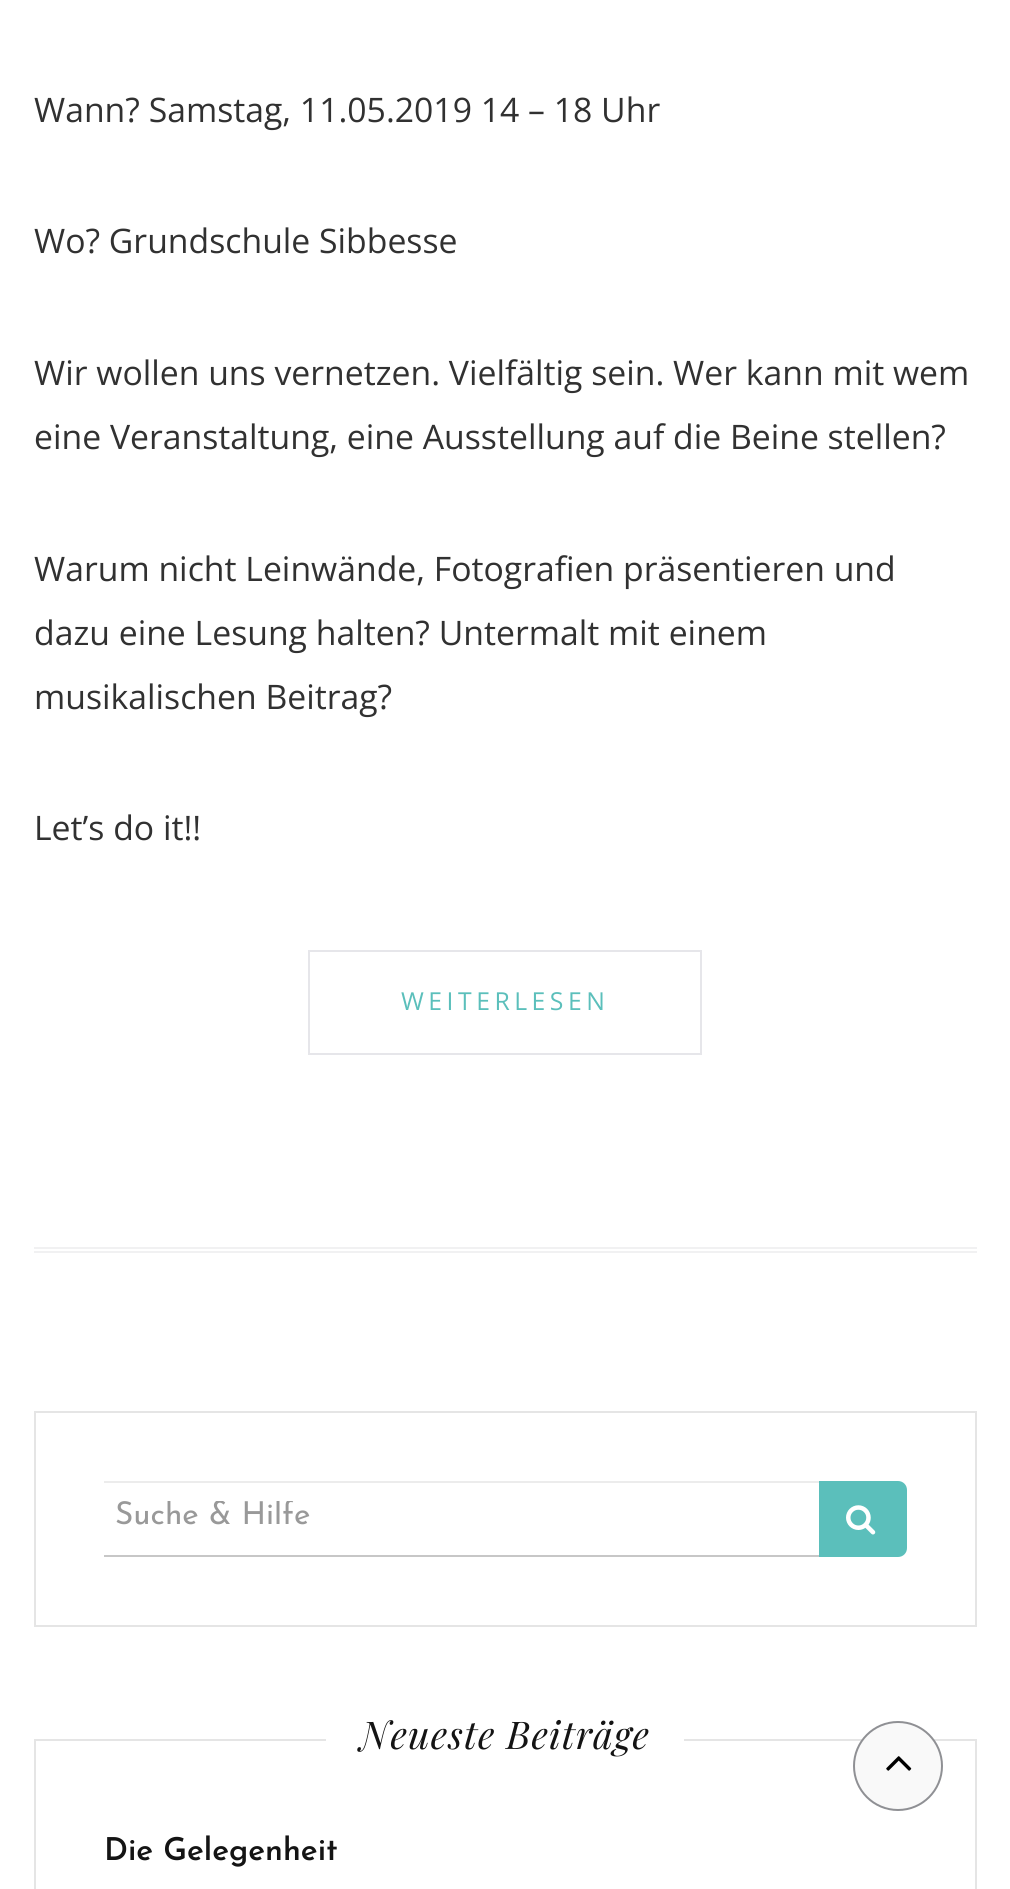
import math
import cairo

surface = cairo.ImageSurface(cairo.FORMAT_RGB24, 1010, 1889)
cr = cairo.Context(surface)
options = cairo.FontOptions()
options.set_hint_metrics(cairo.HINT_METRICS_OFF)
options.set_hint_style(cairo.HINT_STYLE_NONE)
cr.set_font_options(options)
cr.set_miter_limit(4)


def rgb(code):
    cr.set_source_rgb(*(v / 255 for v in bytes.fromhex(code[-6:])))


def tracked(x, y, s, letter, word):
    cr.move_to(x, y)
    for ch in s:
        cr.show_text(ch)
        cr.rel_move_to(letter + word * (ch == ' '), 0)


def image(path, x, y, w, h):
    cr.save()
    cr.set_source_surface(cairo.ImageSurface.create_from_png(path), x, y)
    cr.rectangle(x, y, w, h)
    cr.fill()
    cr.restore()


rgb("#ffffff")
cr.paint()
rgb("#f1f1f2")
cr.rectangle(34, 1247, 943, 2)
cr.fill()
cr.rectangle(34, 1251, 943, 2)
cr.fill()
cr.rectangle(309, 951, 392, 103)
rgb("#e6e6ea")
cr.stroke()
cr.rectangle(35, 1412, 941, 214)
rgb("#e5e5e5")
cr.stroke()
rgb("#ececec")
cr.rectangle(104, 1481, 717, 2)
cr.fill()
rgb("#c7c7c7")
cr.rectangle(104, 1555, 717, 2)
cr.fill()
rgb("#5bbfbb")
cr.new_path()
cr.move_to(820, 1482)
cr.line_to(898, 1482)
cr.curve_to(902.5, 1482, 906, 1485.5, 906, 1490)
cr.line_to(906, 1548)
cr.curve_to(906, 1552.5, 902.5, 1556, 898, 1556)
cr.line_to(820, 1556)
cr.close_path()
cr.fill_preserve()
cr.stroke()
image("img/1.png", 846, 1505, 30, 30)
cr.rectangle(35, 1740, 941, 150)
rgb("#e5e5e5")
cr.stroke()
rgb("#ffffff")
cr.rectangle(326, 1739, 358, 2)
cr.fill()
rgb("#f9f9f9")
cr.arc(898, 1766, 44, 0, 2 * math.pi)
cr.fill_preserve()
rgb("#8f9094")
cr.stroke()
image("img/2.png", 886, 1756, 26, 15)
cr.select_font_face("Open Sans")
cr.set_font_size(33.75)
rgb("#313131")
for x, y, s in [
    (34, 122, "Wann? Samstag, 11.05.2019 14 – 18 Uhr"),
    (34, 253, "Wo? Grundschule Sibbesse"),
    (34, 385, "Wir wollen uns vernetzen. Vielfältig sein. Wer kann mit wem"),
    (34, 449, "eine Veranstaltung, eine Ausstellung auf die Beine stellen?"),
    (34, 581, "Warum nicht Leinwände, Fotografien präsentieren und"),
    (34, 645, "dazu eine Lesung halten? Untermalt mit einem"),
    (34, 709, "musikalischen Beitrag?"),
    (34, 840, "Let’s do it!!"),
]:
    cr.move_to(x, y)
    cr.show_text(s)
cr.set_font_size(24.75)
rgb("#5bbfbb")
tracked(401, 1010, "WEITERLESEN", 4.5, 0)
cr.save()
cr.rectangle(115, 1501, 695, 34)
cr.clip()
cr.select_font_face("Josefin Sans")
cr.set_font_size(31.5)
rgb("#999999")
cr.move_to(115, 1524)
cr.show_text("Suche & Hilfe")
cr.restore()
cr.select_font_face("Playfair Display", cairo.FONT_SLANT_ITALIC)
cr.set_font_size(38.25)
rgb("#141414")
tracked(360, 1749, "Neueste Beiträge", 1.1, 0)
cr.select_font_face("Josefin Sans SemiBold")
cr.set_font_size(31.5)
cr.move_to(104, 1860)
cr.show_text("Die Gelegenheit")
surface.write_to_png("page.png")
